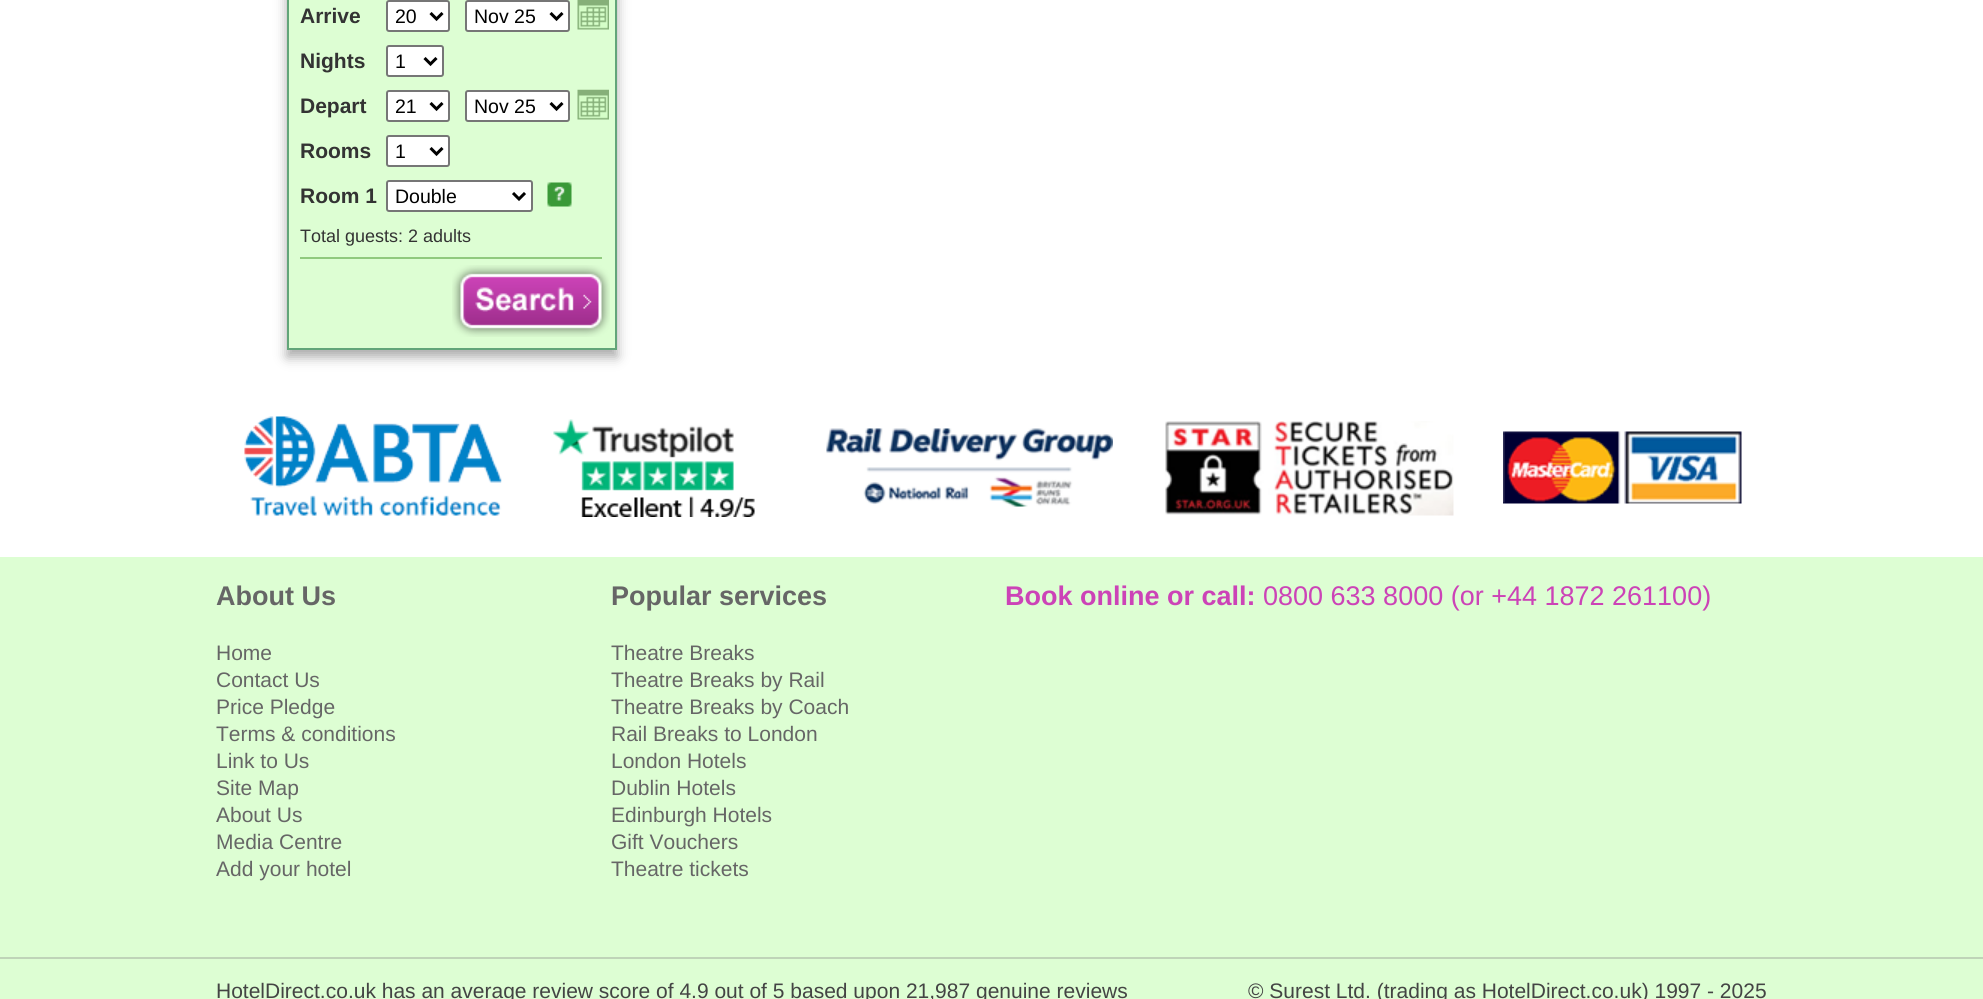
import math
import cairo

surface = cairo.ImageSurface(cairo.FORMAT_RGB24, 1983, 999)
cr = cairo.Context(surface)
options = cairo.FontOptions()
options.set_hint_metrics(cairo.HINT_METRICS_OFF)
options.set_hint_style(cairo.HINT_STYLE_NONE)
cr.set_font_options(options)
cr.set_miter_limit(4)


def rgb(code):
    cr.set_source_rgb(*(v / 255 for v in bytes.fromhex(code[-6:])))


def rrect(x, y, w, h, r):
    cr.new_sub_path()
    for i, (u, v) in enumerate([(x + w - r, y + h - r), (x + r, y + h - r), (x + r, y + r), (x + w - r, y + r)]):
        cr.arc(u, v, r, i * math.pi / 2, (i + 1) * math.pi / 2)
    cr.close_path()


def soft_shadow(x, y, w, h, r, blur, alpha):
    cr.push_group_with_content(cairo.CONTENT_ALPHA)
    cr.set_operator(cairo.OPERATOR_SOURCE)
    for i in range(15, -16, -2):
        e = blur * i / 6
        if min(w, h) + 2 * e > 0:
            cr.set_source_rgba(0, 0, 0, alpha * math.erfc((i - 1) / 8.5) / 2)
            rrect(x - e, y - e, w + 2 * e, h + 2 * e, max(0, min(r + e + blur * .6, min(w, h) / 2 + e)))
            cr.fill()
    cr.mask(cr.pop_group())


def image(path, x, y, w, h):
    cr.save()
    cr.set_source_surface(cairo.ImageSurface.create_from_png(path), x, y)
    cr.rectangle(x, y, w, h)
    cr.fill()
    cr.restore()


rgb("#ffffff")
cr.paint()
rgb("#aaaaaa")
soft_shadow(287, -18, 330, 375, 0, 6, 1)
for x, y, w, h, color in [
    (289, 0, 326, 348, "#ddfed3"),
    (615, 0, 2, 350, "#62a579"),
    (287, 348, 330, 2, "#62a579"),
    (287, 0, 2, 350, "#62a579"),
]:
    rgb(color)
    cr.rectangle(x, y, w, h)
    cr.fill()
rgb("#ffffff")
rrect(387, 1, 62, 30, 2)
cr.fill_preserve()
rgb("#767676")
cr.stroke()
cr.new_path()
cr.move_to(430.5, 13)
cr.line_to(436.5, 19)
cr.line_to(442.5, 13)
rgb("#000000")
cr.set_line_width(3)
cr.stroke()
rgb("#ffffff")
rrect(466, 1, 103, 30, 2)
cr.fill_preserve()
rgb("#767676")
cr.set_line_width(2)
cr.stroke()
cr.new_path()
cr.move_to(550.5, 13)
cr.line_to(556.5, 19)
cr.line_to(562.5, 13)
rgb("#000000")
cr.set_line_width(3)
cr.stroke()
image("img/1.png", 577, 0, 32, 30)
rgb("#ffffff")
rrect(387, 46, 56, 30, 2)
cr.fill_preserve()
rgb("#767676")
cr.set_line_width(2)
cr.stroke()
cr.new_path()
cr.move_to(424.5, 58)
cr.line_to(430.5, 64)
cr.line_to(436.5, 58)
rgb("#000000")
cr.set_line_width(3)
cr.stroke()
rgb("#ffffff")
rrect(387, 91, 62, 30, 2)
cr.fill_preserve()
rgb("#767676")
cr.set_line_width(2)
cr.stroke()
cr.new_path()
cr.move_to(430.5, 103)
cr.line_to(436.5, 109)
cr.line_to(442.5, 103)
rgb("#000000")
cr.set_line_width(3)
cr.stroke()
rgb("#ffffff")
rrect(466, 91, 103, 30, 2)
cr.fill_preserve()
rgb("#767676")
cr.set_line_width(2)
cr.stroke()
cr.new_path()
cr.move_to(550.5, 103)
cr.line_to(556.5, 109)
cr.line_to(562.5, 103)
rgb("#000000")
cr.set_line_width(3)
cr.stroke()
image("img/2.png", 577, 89, 32, 31)
rgb("#ffffff")
rrect(387, 136, 62, 30, 2)
cr.fill_preserve()
rgb("#767676")
cr.set_line_width(2)
cr.stroke()
cr.new_path()
cr.move_to(430.5, 148)
cr.line_to(436.5, 154)
cr.line_to(442.5, 148)
rgb("#000000")
cr.set_line_width(3)
cr.stroke()
rgb("#ffffff")
rrect(387, 181, 145, 30, 2)
cr.fill_preserve()
rgb("#767676")
cr.set_line_width(2)
cr.stroke()
cr.new_path()
cr.move_to(513, 193)
cr.line_to(519, 199)
cr.line_to(525, 193)
rgb("#000000")
cr.set_line_width(3)
cr.stroke()
image("img/3.png", 547, 182, 25, 25)
rgb("#90ca7e")
cr.rectangle(300, 257, 302, 2)
cr.fill()
image("img/4.png", 452, 265, 158, 72)
image("img/5.png", 244, 416, 258, 100)
image("img/6.png", 553, 419, 202, 98)
image("img/7.png", 826, 428, 287, 79)
image("img/8.png", 1165, 421, 289, 95)
image("img/9.png", 1503, 431, 239, 73)
for x, y, w, h, color in [
    (0, 557, 1983, 400, "#ddfed3"),
    (0, 959, 1983, 40, "#ddfed3"),
    (0, 957, 1983, 2, "#bfd4b8"),
]:
    rgb(color)
    cr.rectangle(x, y, w, h)
    cr.fill()
cr.select_font_face("Liberation Sans", cairo.FONT_SLANT_NORMAL, cairo.FONT_WEIGHT_BOLD)
cr.set_font_size(21)
rgb("#333333")
cr.move_to(300, 23)
cr.show_text("Arrive")
cr.select_font_face("Liberation Sans")
cr.set_font_size(19.5)
rgb("#000000")
cr.move_to(395, 23)
cr.show_text("20")
cr.move_to(474, 23)
cr.show_text("Nov 25")
cr.select_font_face("Liberation Sans", cairo.FONT_SLANT_NORMAL, cairo.FONT_WEIGHT_BOLD)
cr.set_font_size(21)
rgb("#333333")
cr.move_to(300, 68)
cr.show_text("Nights")
cr.select_font_face("Liberation Sans")
cr.set_font_size(19.5)
rgb("#000000")
cr.move_to(395, 68)
cr.show_text("1")
cr.select_font_face("Liberation Sans", cairo.FONT_SLANT_NORMAL, cairo.FONT_WEIGHT_BOLD)
cr.set_font_size(21)
rgb("#333333")
cr.move_to(300, 113)
cr.show_text("Depart")
cr.select_font_face("Liberation Sans")
cr.set_font_size(19.5)
rgb("#000000")
cr.move_to(395, 113)
cr.show_text("21")
cr.move_to(474, 113)
cr.show_text("Nov 25")
cr.select_font_face("Liberation Sans", cairo.FONT_SLANT_NORMAL, cairo.FONT_WEIGHT_BOLD)
cr.set_font_size(21)
rgb("#333333")
cr.move_to(300, 158)
cr.show_text("Rooms")
cr.select_font_face("Liberation Sans")
cr.set_font_size(19.5)
rgb("#000000")
cr.move_to(395, 158)
cr.show_text("1")
cr.select_font_face("Liberation Sans", cairo.FONT_SLANT_NORMAL, cairo.FONT_WEIGHT_BOLD)
cr.set_font_size(21)
rgb("#333333")
cr.move_to(300, 203)
cr.show_text("Room 1")
cr.select_font_face("Liberation Sans")
cr.set_font_size(19.5)
rgb("#000000")
cr.move_to(395, 203)
cr.show_text("Double")
cr.set_font_size(18)
rgb("#333333")
cr.move_to(300, 242)
cr.show_text("Total guests: 2 adults")
cr.select_font_face("Liberation Sans", cairo.FONT_SLANT_NORMAL, cairo.FONT_WEIGHT_BOLD)
cr.set_font_size(27)
rgb("#666666")
cr.move_to(216, 605)
cr.show_text("About Us")
cr.select_font_face("Liberation Sans")
cr.set_font_size(21)
for x, y, s in [
    (216, 660, "Home"),
    (216, 687, "Contact Us"),
    (216, 714, "Price Pledge"),
    (216, 741, "Terms & conditions"),
    (216, 768, "Link to Us"),
    (216, 795, "Site Map"),
    (216, 822, "About Us"),
    (216, 849, "Media Centre"),
    (216, 876, "Add your hotel"),
]:
    cr.move_to(x, y)
    cr.show_text(s)
cr.select_font_face("Liberation Sans", cairo.FONT_SLANT_NORMAL, cairo.FONT_WEIGHT_BOLD)
cr.set_font_size(27)
cr.move_to(611, 605)
cr.show_text("Popular services")
cr.select_font_face("Liberation Sans")
cr.set_font_size(21)
for x, y, s in [
    (611, 660, "Theatre Breaks"),
    (611, 687, "Theatre Breaks by Rail"),
    (611, 714, "Theatre Breaks by Coach"),
    (611, 741, "Rail Breaks to London"),
    (611, 768, "London Hotels"),
    (611, 795, "Dublin Hotels"),
    (611, 822, "Edinburgh Hotels"),
    (611, 849, "Gift Vouchers"),
    (611, 876, "Theatre tickets"),
]:
    cr.move_to(x, y)
    cr.show_text(s)
cr.select_font_face("Liberation Sans", cairo.FONT_SLANT_NORMAL, cairo.FONT_WEIGHT_BOLD)
cr.set_font_size(27)
rgb("#cc43b7")
cr.move_to(1005, 605)
cr.show_text("Book online or call:")
cr.select_font_face("Liberation Sans")
cr.move_to(1263, 605)
cr.show_text("0800 633 8000 (or +44 1872 261100)")
cr.set_font_size(21)
rgb("#444444")
cr.move_to(216, 998)
cr.show_text("HotelDirect.co.uk has an average review score of 4.9 out of 5 based upon 21,987 genuine reviews")
cr.move_to(1248, 998)
cr.show_text("© Surest Ltd. (trading as HotelDirect.co.uk) 1997 - 2025")
surface.write_to_png("page.png")
